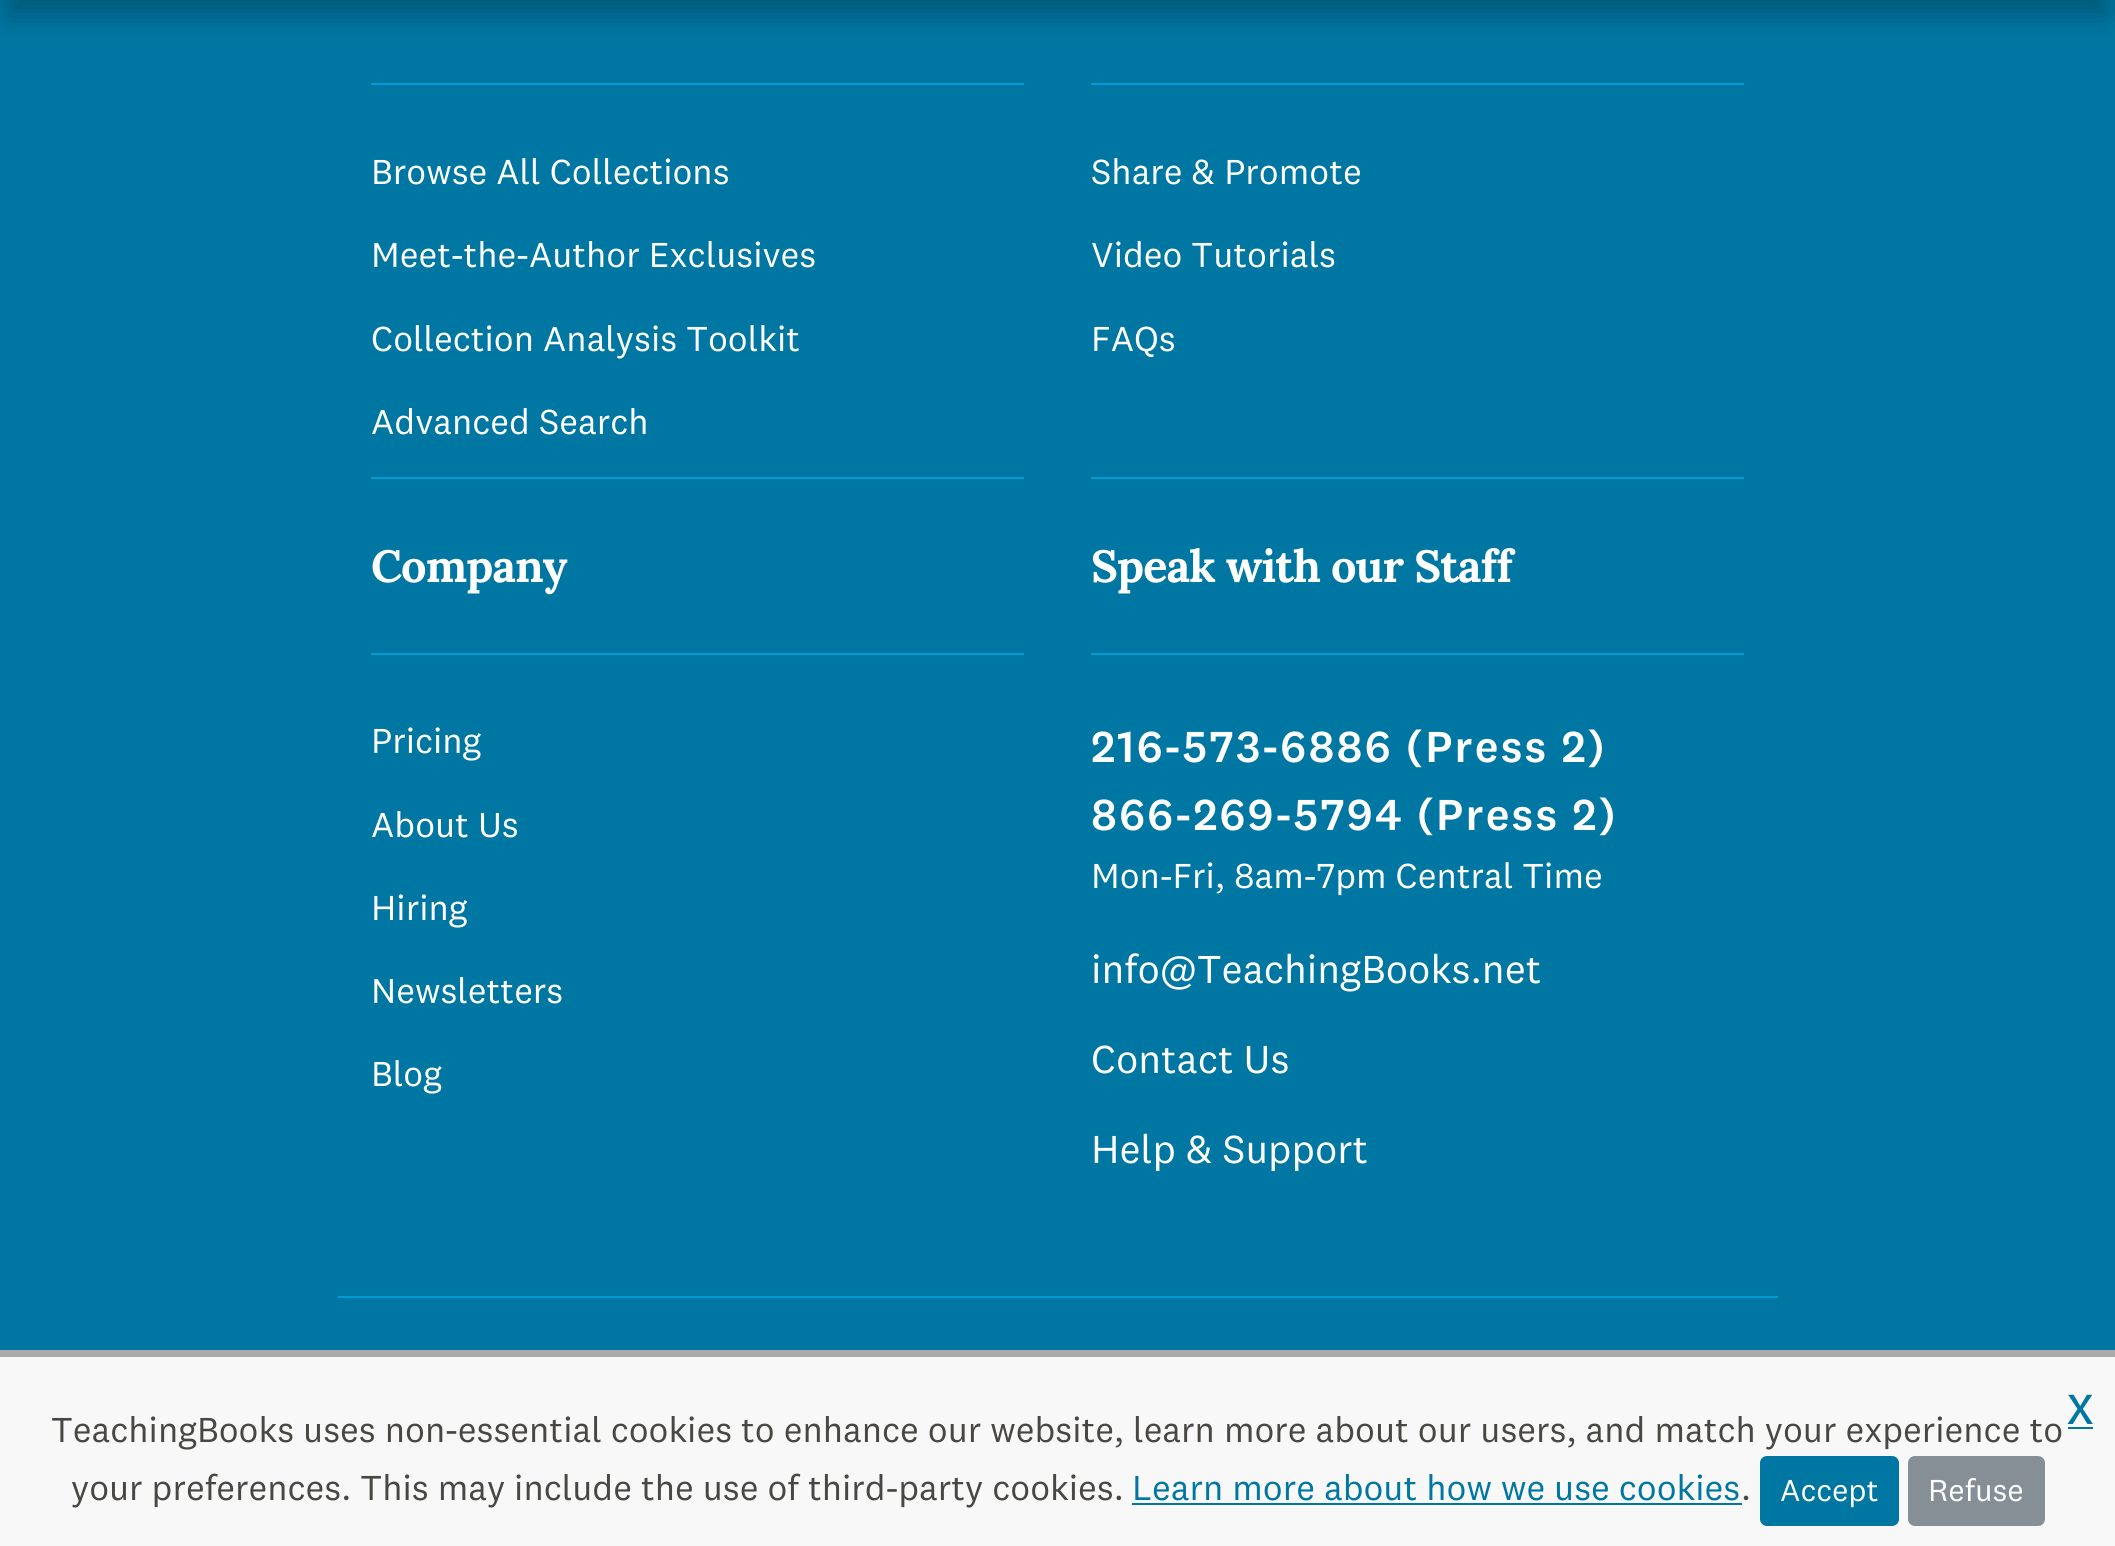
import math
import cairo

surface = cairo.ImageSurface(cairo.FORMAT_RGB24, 2115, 1546)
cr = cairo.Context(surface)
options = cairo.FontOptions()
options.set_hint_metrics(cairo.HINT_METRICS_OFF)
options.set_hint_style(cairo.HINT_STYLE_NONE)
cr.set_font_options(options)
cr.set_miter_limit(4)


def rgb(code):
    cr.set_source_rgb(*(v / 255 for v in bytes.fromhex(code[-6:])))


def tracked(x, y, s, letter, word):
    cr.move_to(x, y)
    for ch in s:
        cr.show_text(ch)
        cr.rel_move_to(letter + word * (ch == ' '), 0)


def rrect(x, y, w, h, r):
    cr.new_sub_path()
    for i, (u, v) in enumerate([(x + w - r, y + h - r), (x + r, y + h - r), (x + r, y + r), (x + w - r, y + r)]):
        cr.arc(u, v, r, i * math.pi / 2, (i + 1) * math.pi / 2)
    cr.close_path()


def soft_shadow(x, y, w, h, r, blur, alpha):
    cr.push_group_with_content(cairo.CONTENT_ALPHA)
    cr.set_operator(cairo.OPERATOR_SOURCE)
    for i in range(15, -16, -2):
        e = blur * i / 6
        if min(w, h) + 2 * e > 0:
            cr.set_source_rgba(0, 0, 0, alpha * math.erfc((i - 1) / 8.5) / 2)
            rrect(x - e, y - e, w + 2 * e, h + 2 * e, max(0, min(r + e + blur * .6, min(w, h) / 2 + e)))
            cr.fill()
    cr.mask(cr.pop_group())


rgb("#0077a2")
cr.paint()
rgb("#000000")
soft_shadow(7, -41, 2101, 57, 0, 13.5, 0.25)
for x, y, w, h, color in [
    (371, 83, 653, 2, "#009cd5"),
    (1091, 83, 653, 2, "#009cd5"),
    (371, 477, 653, 2, "#009cd5"),
    (371, 653, 653, 2, "#009cd5"),
    (1091, 477, 653, 2, "#009cd5"),
    (1091, 653, 653, 2, "#009cd5"),
    (338, 1296, 1440, 2, "#009cd5"),
    (0, 1357, 2115, 189, "#f8f8f8"),
    (0, 1350, 2115, 7, "#aaaaaa"),
    (2068, 1427, 25, 2, "#0077a2"),
    (1132, 1503, 610, 2, "#0077a2"),
]:
    rgb(color)
    cr.rectangle(x, y, w, h)
    cr.fill()
rrect(1761, 1457, 137, 68, 6)
cr.fill_preserve()
cr.stroke()
rgb("#868e96")
rrect(1909, 1457, 135, 68, 6)
cr.fill_preserve()
cr.stroke()
cr.select_font_face("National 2")
cr.set_font_size(36)
rgb("#ffffff")
for x, y, s in [
    (371, 184, "Browse All Collections"),
    (371, 267, "Meet-the-Author Exclusives"),
    (371, 351, "Collection Analysis Toolkit"),
    (371, 434, "Advanced Search"),
    (1091, 184, "Share & Promote"),
    (1091, 267, "Video Tutorials"),
    (1091, 351, "FAQs"),
]:
    cr.move_to(x, y)
    cr.show_text(s)
cr.select_font_face("Lora", cairo.FONT_SLANT_NORMAL, cairo.FONT_WEIGHT_BOLD)
cr.set_font_size(45)
tracked(371, 582, "Company", -0.9, 0)
cr.select_font_face("National 2")
cr.set_font_size(36)
for x, y, s in [
    (371, 753, "Pricing"),
    (371, 837, "About Us"),
    (371, 920, "Hiring"),
    (371, 1003, "Newsletters"),
    (371, 1086, "Blog"),
]:
    cr.move_to(x, y)
    cr.show_text(s)
cr.select_font_face("Lora", cairo.FONT_SLANT_NORMAL, cairo.FONT_WEIGHT_BOLD)
cr.set_font_size(45)
tracked(1091, 582, "Speak with our Staff", -0.9, 0)
cr.select_font_face("National 2 Medium")
tracked(1091, 762, "216-573-6886 (Press 2)", 2.25, 0)
tracked(1091, 830, "866-269-5794 (Press 2)", 2.25, 0)
cr.select_font_face("National 2")
cr.set_font_size(36)
cr.move_to(1091, 888)
cr.show_text("Mon-Fri, 8am-7pm Central Time")
cr.set_font_size(40.5)
for x, y, s in [
    (1091, 983, "info@TeachingBooks.net"),
    (1091, 1073, "Contact Us"),
    (1091, 1163, "Help & Support"),
]:
    cr.move_to(x, y)
    cr.show_text(s)
cr.select_font_face("National 2", cairo.FONT_SLANT_NORMAL, cairo.FONT_WEIGHT_BOLD)
cr.set_font_size(42)
rgb("#0077a2")
cr.move_to(2067, 1424)
cr.show_text("X")
cr.select_font_face("National 2")
cr.set_font_size(36)
rgb("#484744")
cr.move_to(51, 1442)
cr.show_text("TeachingBooks uses non-essential cookies to enhance our website, learn more about our users, and match your experience to")
cr.move_to(71, 1500)
cr.show_text("your preferences. This may include the use of third-party cookies.")
rgb("#0077a2")
cr.move_to(1132, 1500)
cr.show_text("Learn more about how we use cookies")
rgb("#484744")
cr.move_to(1741, 1500)
cr.show_text(".")
cr.set_font_size(31.5)
rgb("#ffffff")
cr.move_to(1780, 1501)
cr.show_text("Accept")
cr.move_to(1928, 1501)
cr.show_text("Refuse")
surface.write_to_png("page.png")
